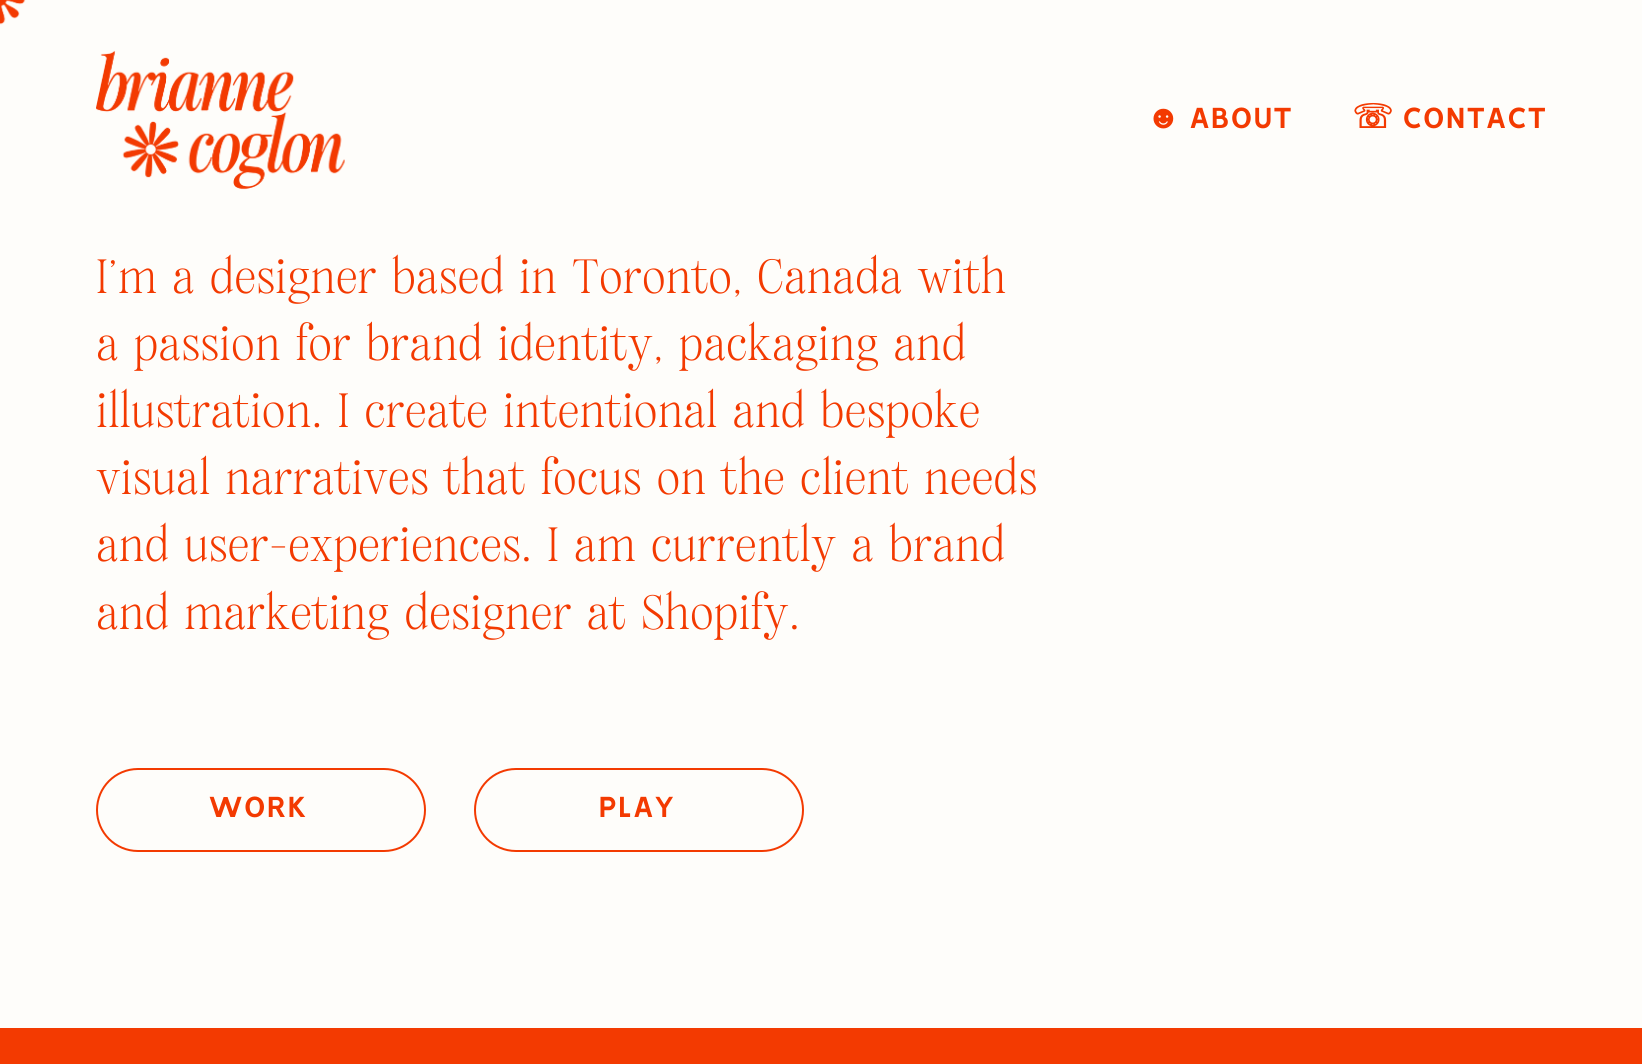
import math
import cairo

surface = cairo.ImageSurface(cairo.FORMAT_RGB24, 1642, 1064)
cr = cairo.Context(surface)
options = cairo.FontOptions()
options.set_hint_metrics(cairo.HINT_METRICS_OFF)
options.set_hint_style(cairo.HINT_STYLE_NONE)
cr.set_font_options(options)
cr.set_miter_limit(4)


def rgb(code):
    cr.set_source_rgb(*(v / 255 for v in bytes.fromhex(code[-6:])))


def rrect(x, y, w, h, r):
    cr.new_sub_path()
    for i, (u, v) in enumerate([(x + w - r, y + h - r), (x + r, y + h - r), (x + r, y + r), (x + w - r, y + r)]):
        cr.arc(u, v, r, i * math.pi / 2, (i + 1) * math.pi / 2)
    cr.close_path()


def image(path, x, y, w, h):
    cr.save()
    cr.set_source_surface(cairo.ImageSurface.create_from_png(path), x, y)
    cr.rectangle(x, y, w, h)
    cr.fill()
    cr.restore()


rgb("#fefdfa")
cr.paint()
image("img/1.png", 0, 0, 26, 25)
image("img/2.png", 96, 50, 249, 140)
rrect(97, 769, 328, 82, 41)
rgb("#f33a01")
cr.stroke()
rrect(475, 769, 328, 82, 41)
cr.stroke()
cr.rectangle(0, 1028, 1642, 36)
cr.fill()
cr.select_font_face("Liberation Sans", cairo.FONT_SLANT_NORMAL, cairo.FONT_WEIGHT_BOLD)
cr.set_font_size(33)
cr.move_to(1146, 128)
cr.show_text("☻")
cr.select_font_face("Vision", cairo.FONT_SLANT_NORMAL, cairo.FONT_WEIGHT_BOLD)
cr.move_to(1189, 128)
cr.show_text("ABOUT")
cr.select_font_face("DejaVu Sans", cairo.FONT_SLANT_NORMAL, cairo.FONT_WEIGHT_BOLD)
cr.move_to(1352, 128)
cr.show_text("☏")
cr.select_font_face("Vision", cairo.FONT_SLANT_NORMAL, cairo.FONT_WEIGHT_BOLD)
cr.move_to(1402, 128)
cr.show_text("CONTACT")
cr.select_font_face("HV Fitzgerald")
cr.set_font_size(48)
for x, y, s in [
    (96, 293, "I'm a designer based in Toronto, Canada with"),
    (96, 360, "a passion for brand identity, packaging and"),
    (96, 427, "illustration. I create intentional and bespoke"),
    (96, 494, "visual narratives that focus on the client needs"),
    (96, 561, "and user-experiences. I am currently a brand"),
    (96, 629, "and marketing designer at Shopify."),
]:
    cr.move_to(x, y)
    cr.show_text(s)
cr.select_font_face("Vision", cairo.FONT_SLANT_NORMAL, cairo.FONT_WEIGHT_BOLD)
cr.set_font_size(33)
cr.move_to(208, 817)
cr.show_text("WORK")
cr.move_to(598, 817)
cr.show_text("PLAY")
surface.write_to_png("page.png")
